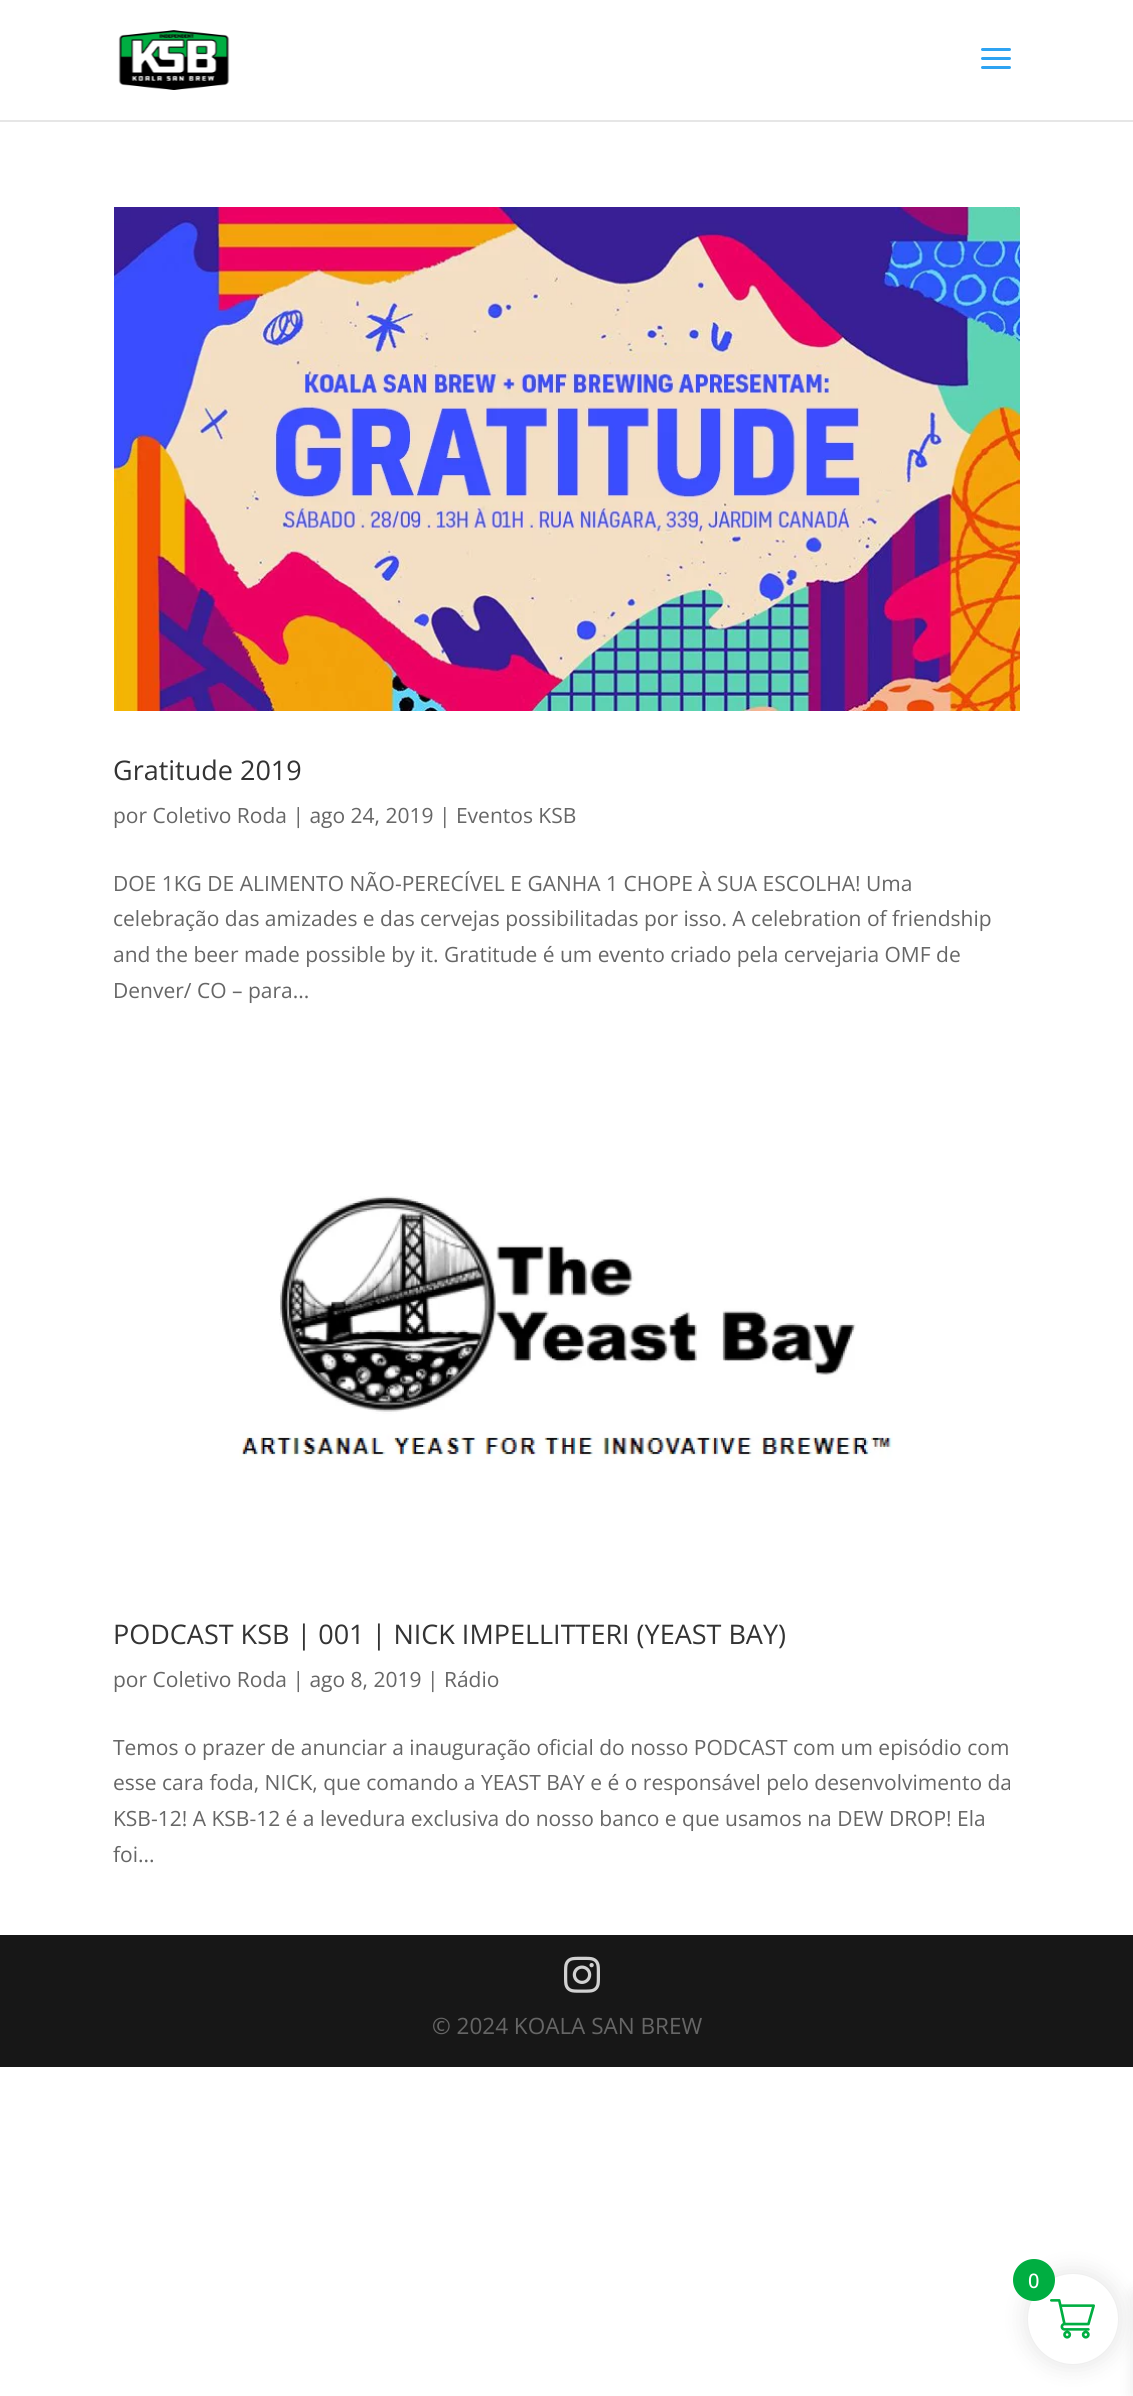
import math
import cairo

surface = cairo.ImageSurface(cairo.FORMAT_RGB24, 1133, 2396)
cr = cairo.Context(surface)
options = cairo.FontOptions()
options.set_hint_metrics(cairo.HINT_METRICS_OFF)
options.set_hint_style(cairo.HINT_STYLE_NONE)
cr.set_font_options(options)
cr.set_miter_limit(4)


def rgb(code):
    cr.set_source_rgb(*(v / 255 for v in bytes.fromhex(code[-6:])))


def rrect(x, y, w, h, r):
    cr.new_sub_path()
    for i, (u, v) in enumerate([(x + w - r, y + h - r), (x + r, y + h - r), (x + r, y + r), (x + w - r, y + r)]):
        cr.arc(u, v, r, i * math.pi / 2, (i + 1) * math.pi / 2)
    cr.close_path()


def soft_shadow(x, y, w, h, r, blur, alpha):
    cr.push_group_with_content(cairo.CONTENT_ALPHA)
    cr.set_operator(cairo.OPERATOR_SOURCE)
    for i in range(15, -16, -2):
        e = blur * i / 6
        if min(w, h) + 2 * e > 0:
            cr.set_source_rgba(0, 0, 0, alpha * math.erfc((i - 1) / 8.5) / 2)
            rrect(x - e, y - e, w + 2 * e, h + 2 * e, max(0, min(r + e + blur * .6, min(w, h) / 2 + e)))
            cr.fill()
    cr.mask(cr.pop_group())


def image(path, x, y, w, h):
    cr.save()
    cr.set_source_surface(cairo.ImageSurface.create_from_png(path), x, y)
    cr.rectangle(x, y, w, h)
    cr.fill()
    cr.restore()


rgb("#ffffff")
cr.paint()
rgb("#e6e6e6")
cr.rectangle(0, 120, 1133, 2)
cr.fill()
image("img/1.png", 118, 30, 112, 60)
image("img/2.png", 981, 48, 30, 21)
image("img/3.png", 114, 207, 906, 504)
image("img/4.png", 239, 1196, 654, 263)
rgb("#171717")
cr.rectangle(0, 1935, 1133, 132)
cr.fill()
image("img/5.png", 564, 1956, 36, 37)
rgb("#000000")
soft_shadow(1025, 2271, 96, 96, 48, 11, 0.1)
soft_shadow(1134, 2294, 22, 102, 0, 7.5, 0.1)
rgb("#ffffff")
cr.arc(1073, 2319, 45, 0, 2 * math.pi)
cr.fill()
image("img/6.png", 1050, 2299, 45, 40)
rgb("#00ae41")
cr.arc(1034, 2280, 21, 0, 2 * math.pi)
cr.fill()
cr.select_font_face("Open Sans")
cr.set_font_size(27)
rgb("#333333")
cr.move_to(113, 780)
cr.show_text("Gratitude 2019")
cr.set_font_size(21)
rgb("#666666")
for x, y, s in [
    (113, 823, "por Coletivo Roda | ago 24, 2019 | Eventos KSB"),
    (113, 891, "DOE 1KG DE ALIMENTO NÃO-PERECÍVEL E GANHA 1 CHOPE À SUA ESCOLHA! Uma"),
    (113, 926, "celebração das amizades e das cervejas possibilitadas por isso. A celebration of friendship"),
    (113, 962, "and the beer made possible by it. Gratitude é um evento criado pela cervejaria OMF de"),
    (113, 998, "Denver/ CO – para..."),
]:
    cr.move_to(x, y)
    cr.show_text(s)
cr.set_font_size(27)
rgb("#333333")
cr.move_to(113, 1644)
cr.show_text("PODCAST KSB | 001 | NICK IMPELLITTERI (YEAST BAY)")
cr.set_font_size(21)
rgb("#666666")
for x, y, s in [
    (113, 1687, "por Coletivo Roda | ago 8, 2019 | Rádio"),
    (113, 1755, "Temos o prazer de anunciar a inauguração oficial do nosso PODCAST com um episódio com"),
    (113, 1790, "esse cara foda, NICK, que comando a YEAST BAY e é o responsável pelo desenvolvimento da"),
    (113, 1826, "KSB-12! A KSB-12 é a levedura exclusiva do nosso banco e que usamos na DEW DROP! Ela"),
    (113, 1862, "foi..."),
]:
    cr.move_to(x, y)
    cr.show_text(s)
cr.set_font_size(22.5)
cr.move_to(432, 2034)
cr.show_text("© 2024 KOALA SAN BREW")
cr.select_font_face("Open Sans Medium")
cr.set_font_size(20)
rgb("#ffffff")
cr.move_to(1028, 2288)
cr.show_text("0")
surface.write_to_png("page.png")
